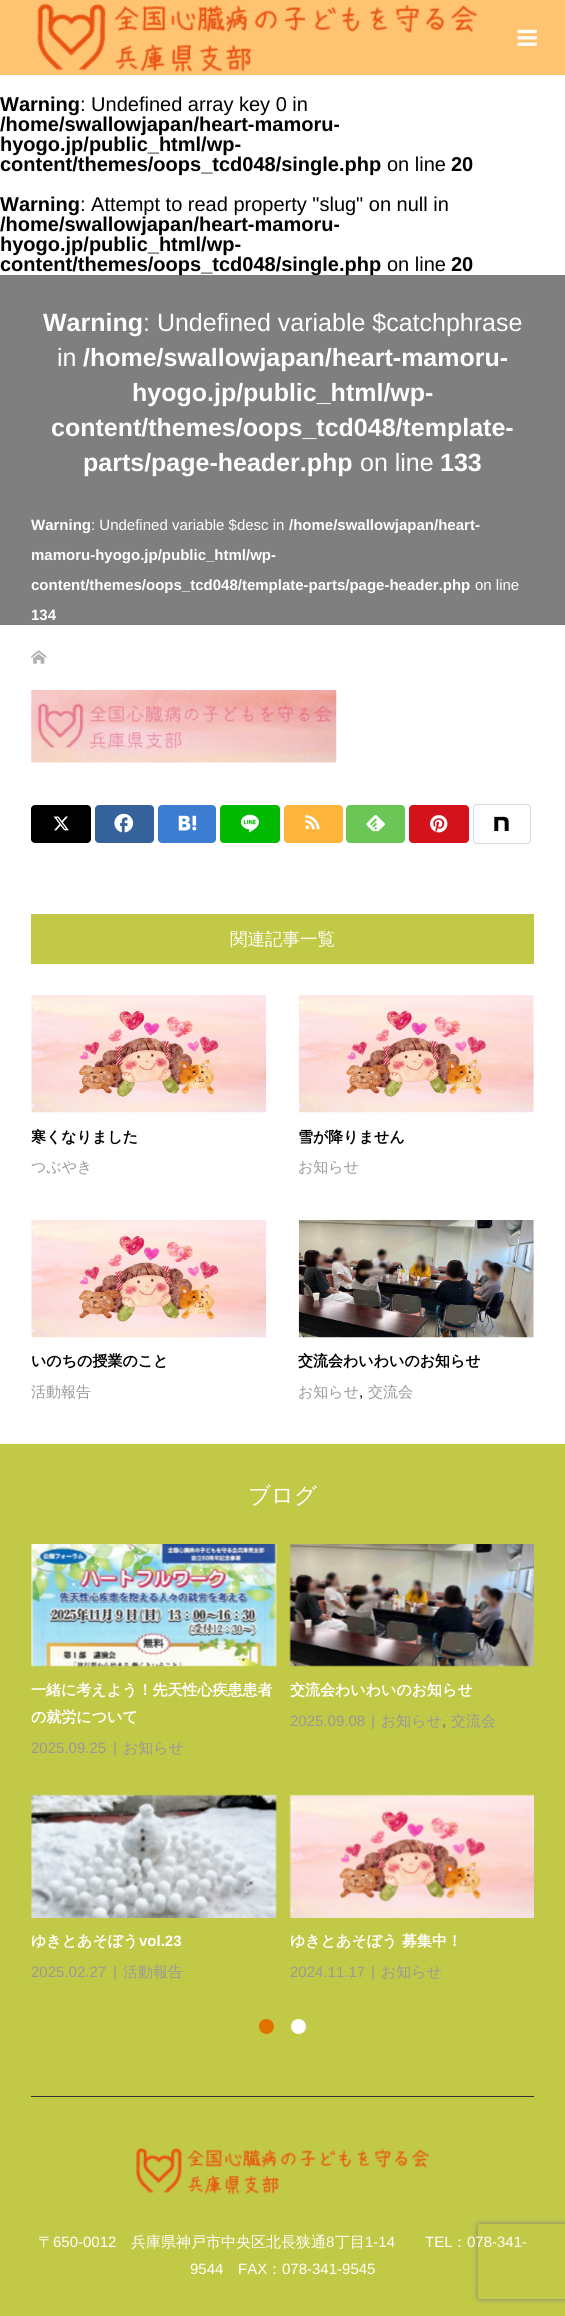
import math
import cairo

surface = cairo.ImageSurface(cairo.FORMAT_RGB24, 565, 2316)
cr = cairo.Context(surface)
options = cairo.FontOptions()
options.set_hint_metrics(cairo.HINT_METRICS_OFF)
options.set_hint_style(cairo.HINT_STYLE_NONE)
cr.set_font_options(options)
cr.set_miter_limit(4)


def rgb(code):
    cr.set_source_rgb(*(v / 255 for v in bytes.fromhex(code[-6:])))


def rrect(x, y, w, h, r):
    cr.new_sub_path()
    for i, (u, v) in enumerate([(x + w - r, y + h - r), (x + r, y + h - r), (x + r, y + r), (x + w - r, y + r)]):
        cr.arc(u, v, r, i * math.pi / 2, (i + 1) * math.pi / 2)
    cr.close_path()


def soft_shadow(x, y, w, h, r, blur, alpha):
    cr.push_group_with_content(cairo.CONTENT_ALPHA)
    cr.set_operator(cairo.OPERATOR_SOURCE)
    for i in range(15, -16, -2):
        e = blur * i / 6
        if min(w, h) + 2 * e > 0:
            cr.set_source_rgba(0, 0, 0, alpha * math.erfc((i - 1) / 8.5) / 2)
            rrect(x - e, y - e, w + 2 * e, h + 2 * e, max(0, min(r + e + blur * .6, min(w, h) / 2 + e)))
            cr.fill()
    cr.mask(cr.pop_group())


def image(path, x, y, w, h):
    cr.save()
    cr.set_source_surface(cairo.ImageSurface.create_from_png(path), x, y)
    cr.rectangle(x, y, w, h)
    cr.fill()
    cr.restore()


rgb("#ffffff")
cr.paint()
rgb("#ffc472")
cr.rectangle(0, 0, 565, 75)
cr.fill()
image("img/1.png", 37, 3, 441, 70)
image("img/2.png", 517, 29, 20, 17)
image("img/3.png", 31, 650, 16, 14)
image("img/4.png", 31, 690, 306, 73)
rgb("#000000")
rrect(31, 805, 60, 38, 4)
cr.fill()
image("img/5.png", 53, 816, 16, 15)
rgb("#35629a")
rrect(95, 805, 59, 38, 4)
cr.fill()
image("img/6.png", 114, 813, 20, 20)
rgb("#3c7dd1")
rrect(158, 805, 58, 38, 4)
cr.fill()
image("img/7.png", 178, 815, 19, 16)
rgb("#00b900")
rrect(220, 805, 60, 38, 4)
cr.fill()
image("img/8.png", 241, 814, 18, 19)
rgb("#ffb53c")
rrect(284, 805, 59, 38, 4)
cr.fill()
image("img/9.png", 305, 815, 15, 15)
rgb("#6cc655")
rrect(346, 805, 59, 38, 4)
cr.fill()
image("img/10.png", 366, 814, 19, 18)
rgb("#d4121c")
rrect(409, 805, 60, 38, 4)
cr.fill()
image("img/11.png", 430, 815, 18, 18)
rrect(473.5, 804.5, 57, 39, 3.5)
rgb("#dddddd")
cr.set_line_width(1)
cr.stroke()
image("img/12.png", 494, 816, 15, 15)
rgb("#c2c946")
cr.rectangle(31, 914, 503, 50)
cr.fill()
image("img/13.png", 31, 995, 236, 118)
image("img/14.png", 298, 995, 236, 118)
image("img/15.png", 31, 1220, 236, 118)
image("img/16.png", 298, 1220, 236, 118)
cr.rectangle(0, 1444, 565, 872)
cr.fill()
rgb("#333333")
cr.rectangle(31, 2096, 503, 1)
cr.fill()
image("img/17.png", 31, 1544, 246, 123)
image("img/18.png", 289, 1544, 245, 123)
image("img/19.png", 31, 1794, 246, 124)
image("img/20.png", 289, 1794, 245, 124)
rgb("#e37100")
cr.arc(266.5, 2026.5, 7.5, 0, 2 * math.pi)
cr.fill()
rgb("#ffffff")
cr.arc(298.5, 2026.5, 7.5, 0, 2 * math.pi)
cr.fill()
image("img/21.png", 136, 2148, 293, 46)
cr.save()
cr.set_fill_rule(cairo.FILL_RULE_EVEN_ODD)
cr.new_path()
cr.move_to(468, 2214)
cr.line_to(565, 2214)
cr.line_to(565, 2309)
cr.line_to(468, 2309)
cr.close_path()
cr.move_to(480.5, 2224)
cr.line_to(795.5, 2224)
cr.curve_to(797, 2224, 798, 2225, 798, 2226.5)
cr.line_to(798, 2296.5)
cr.curve_to(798, 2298, 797, 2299, 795.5, 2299)
cr.line_to(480.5, 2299)
cr.curve_to(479, 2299, 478, 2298, 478, 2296.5)
cr.line_to(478, 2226.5)
cr.curve_to(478, 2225, 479, 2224, 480.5, 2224)
cr.close_path()
cr.clip()
rgb("#808080")
soft_shadow(478, 2224, 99, 75, 2.5, 3, 1)
cr.restore()
cr.select_font_face("Liberation Sans", cairo.FONT_SLANT_NORMAL, cairo.FONT_WEIGHT_BOLD)
cr.set_font_size(20)
rgb("#000000")
cr.move_to(0, 111)
cr.show_text("Warning")
cr.select_font_face("Liberation Sans")
cr.move_to(80, 111)
cr.show_text(": Undefined array key 0 in")
cr.select_font_face("Liberation Sans", cairo.FONT_SLANT_NORMAL, cairo.FONT_WEIGHT_BOLD)
for x, y, s in [
    (0, 131, "/home/swallowjapan/heart-mamoru-"),
    (0, 151, "hyogo.jp/public_html/wp-"),
    (0, 171, "content/themes/oops_tcd048/single.php"),
]:
    cr.move_to(x, y)
    cr.show_text(s)
cr.select_font_face("Liberation Sans")
cr.move_to(387, 171)
cr.show_text("on line")
cr.select_font_face("Liberation Sans", cairo.FONT_SLANT_NORMAL, cairo.FONT_WEIGHT_BOLD)
cr.move_to(451, 171)
cr.show_text("20")
cr.move_to(0, 211)
cr.show_text("Warning")
cr.select_font_face("Liberation Sans")
cr.move_to(80, 211)
cr.show_text(": Attempt to read property \"slug\" on null in")
cr.select_font_face("Liberation Sans", cairo.FONT_SLANT_NORMAL, cairo.FONT_WEIGHT_BOLD)
for x, y, s in [
    (0, 231, "/home/swallowjapan/heart-mamoru-"),
    (0, 251, "hyogo.jp/public_html/wp-"),
    (0, 271, "content/themes/oops_tcd048/single.php"),
]:
    cr.move_to(x, y)
    cr.show_text(s)
cr.select_font_face("Liberation Sans")
cr.move_to(387, 271)
cr.show_text("on line")
cr.select_font_face("Liberation Sans", cairo.FONT_SLANT_NORMAL, cairo.FONT_WEIGHT_BOLD)
cr.move_to(451, 271)
cr.show_text("20")
cr.set_source_rgba(0, 0, 0, 0.5)
cr.rectangle(0, 275, 565, 350)
cr.fill()
cr.set_font_size(25)
rgb("#ffffff")
cr.move_to(43, 331)
cr.show_text("Warning")
cr.select_font_face("Liberation Sans")
cr.move_to(143, 331)
cr.show_text(": Undefined variable $catchphrase")
cr.move_to(57, 366)
cr.show_text("in")
cr.select_font_face("Liberation Sans", cairo.FONT_SLANT_NORMAL, cairo.FONT_WEIGHT_BOLD)
for x, y, s in [
    (83, 366, "/home/swallowjapan/heart-mamoru-"),
    (132, 401, "hyogo.jp/public_html/wp-"),
    (51, 436, "content/themes/oops_tcd048/template-"),
    (83, 471, "parts/page-header.php"),
]:
    cr.move_to(x, y)
    cr.show_text(s)
cr.select_font_face("Liberation Sans")
cr.move_to(360, 471)
cr.show_text("on line")
cr.select_font_face("Liberation Sans", cairo.FONT_SLANT_NORMAL, cairo.FONT_WEIGHT_BOLD)
cr.move_to(440, 471)
cr.show_text("133")
cr.set_font_size(15)
cr.move_to(31, 530)
cr.show_text("Warning")
cr.select_font_face("Liberation Sans")
cr.move_to(91, 530)
cr.show_text(": Undefined variable $desc in")
cr.select_font_face("Liberation Sans", cairo.FONT_SLANT_NORMAL, cairo.FONT_WEIGHT_BOLD)
for x, y, s in [
    (289, 530, "/home/swallowjapan/heart-"),
    (31, 560, "mamoru-hyogo.jp/public_html/wp-"),
    (31, 590, "content/themes/oops_tcd048/template-parts/page-header.php"),
]:
    cr.move_to(x, y)
    cr.show_text(s)
cr.select_font_face("Liberation Sans")
cr.move_to(475, 590)
cr.show_text("on line")
cr.select_font_face("Liberation Sans", cairo.FONT_SLANT_NORMAL, cairo.FONT_WEIGHT_BOLD)
cr.move_to(31, 620)
cr.show_text("134")
cr.select_font_face("WenQuanYi Zen Hei Medium")
cr.set_font_size(17.5)
cr.move_to(230, 945)
cr.show_text("関連記事一覧")
cr.select_font_face("WenQuanYi Zen Hei", cairo.FONT_SLANT_NORMAL, cairo.FONT_WEIGHT_BOLD)
cr.set_font_size(15)
rgb("#000000")
cr.move_to(31, 1142)
cr.show_text("寒くなりました")
cr.select_font_face("WenQuanYi Zen Hei Medium")
rgb("#999999")
cr.move_to(31, 1172)
cr.show_text("つぶやき")
cr.select_font_face("WenQuanYi Zen Hei", cairo.FONT_SLANT_NORMAL, cairo.FONT_WEIGHT_BOLD)
rgb("#000000")
cr.move_to(298, 1142)
cr.show_text("雪が降りません")
cr.select_font_face("WenQuanYi Zen Hei Medium")
rgb("#999999")
cr.move_to(298, 1172)
cr.show_text("お知らせ")
cr.select_font_face("WenQuanYi Zen Hei", cairo.FONT_SLANT_NORMAL, cairo.FONT_WEIGHT_BOLD)
rgb("#000000")
cr.move_to(31, 1366)
cr.show_text("いのちの授業のこと")
cr.select_font_face("WenQuanYi Zen Hei Medium")
rgb("#999999")
cr.move_to(31, 1397)
cr.show_text("活動報告")
cr.select_font_face("WenQuanYi Zen Hei", cairo.FONT_SLANT_NORMAL, cairo.FONT_WEIGHT_BOLD)
rgb("#000000")
cr.move_to(298, 1366)
cr.show_text("交流会わいわいのお知らせ")
cr.select_font_face("WenQuanYi Zen Hei Medium")
rgb("#999999")
cr.move_to(298, 1397)
cr.show_text("お知らせ")
cr.select_font_face("Liberation Sans")
rgb("#000000")
cr.move_to(359, 1397)
cr.show_text(",")
cr.select_font_face("WenQuanYi Zen Hei Medium")
rgb("#999999")
cr.move_to(368, 1397)
cr.show_text("交流会")
cr.set_font_size(22.5)
rgb("#ffffff")
cr.move_to(248, 1503)
cr.show_text("ブログ")
cr.select_font_face("WenQuanYi Zen Hei", cairo.FONT_SLANT_NORMAL, cairo.FONT_WEIGHT_BOLD)
cr.set_font_size(15)
cr.move_to(31, 1695)
cr.show_text("一緒に考えよう！先天性心疾患患者")
cr.move_to(31, 1722)
cr.show_text("の就労について")
cr.select_font_face("Liberation Sans")
rgb("#999999")
cr.move_to(31, 1753)
cr.show_text("2025.09.25")
cr.move_to(113, 1753)
cr.show_text("|")
cr.select_font_face("WenQuanYi Zen Hei Medium")
cr.move_to(123, 1753)
cr.show_text("お知らせ")
cr.select_font_face("WenQuanYi Zen Hei", cairo.FONT_SLANT_NORMAL, cairo.FONT_WEIGHT_BOLD)
rgb("#ffffff")
cr.move_to(290, 1695)
cr.show_text("交流会わいわいのお知らせ")
cr.select_font_face("Liberation Sans")
rgb("#999999")
cr.move_to(290, 1726)
cr.show_text("2025.09.08")
cr.move_to(371, 1726)
cr.show_text("|")
cr.select_font_face("WenQuanYi Zen Hei Medium")
cr.move_to(381, 1726)
cr.show_text("お知らせ")
cr.select_font_face("Liberation Sans")
rgb("#646767")
cr.move_to(442, 1726)
cr.show_text(",")
cr.select_font_face("WenQuanYi Zen Hei Medium")
rgb("#999999")
cr.move_to(451, 1726)
cr.show_text("交流会")
cr.select_font_face("WenQuanYi Zen Hei", cairo.FONT_SLANT_NORMAL, cairo.FONT_WEIGHT_BOLD)
rgb("#ffffff")
cr.move_to(31, 1946)
cr.show_text("ゆきとあそぼう")
cr.select_font_face("Liberation Sans", cairo.FONT_SLANT_NORMAL, cairo.FONT_WEIGHT_BOLD)
cr.move_to(139, 1946)
cr.show_text("vol.23")
cr.select_font_face("Liberation Sans")
rgb("#999999")
cr.move_to(31, 1977)
cr.show_text("2025.02.27")
cr.move_to(113, 1977)
cr.show_text("|")
cr.select_font_face("WenQuanYi Zen Hei Medium")
cr.move_to(123, 1977)
cr.show_text("活動報告")
cr.select_font_face("WenQuanYi Zen Hei", cairo.FONT_SLANT_NORMAL, cairo.FONT_WEIGHT_BOLD)
rgb("#ffffff")
cr.move_to(290, 1946)
cr.show_text("ゆきとあそぼう 募集中！")
cr.select_font_face("Liberation Sans")
rgb("#999999")
cr.move_to(290, 1977)
cr.show_text("2024.11.17")
cr.move_to(371, 1977)
cr.show_text("|")
cr.select_font_face("WenQuanYi Zen Hei Medium")
cr.move_to(381, 1977)
cr.show_text("お知らせ")
rgb("#ffffff")
cr.move_to(38, 2247)
cr.show_text("〒")
cr.select_font_face("Liberation Sans")
cr.move_to(53, 2247)
cr.show_text("650-0012")
cr.select_font_face("WenQuanYi Zen Hei Medium")
cr.move_to(131, 2247)
cr.show_text("兵庫県神戸市中央区北長狭通")
cr.select_font_face("Liberation Sans")
cr.move_to(326, 2247)
cr.show_text("8")
cr.select_font_face("WenQuanYi Zen Hei Medium")
cr.move_to(335, 2247)
cr.show_text("丁目")
cr.select_font_face("Liberation Sans")
cr.move_to(365, 2247)
cr.show_text("1-14")
cr.move_to(425, 2247)
cr.show_text("TEL")
cr.select_font_face("WenQuanYi Zen Hei Medium")
cr.move_to(452, 2247)
cr.show_text("：")
cr.select_font_face("Liberation Sans")
for x, y, s in [
    (467, 2247, "078-341-"),
    (190, 2274, "9544"),
    (238, 2274, "FAX"),
]:
    cr.move_to(x, y)
    cr.show_text(s)
cr.select_font_face("WenQuanYi Zen Hei Medium")
cr.move_to(267, 2274)
cr.show_text("：")
cr.select_font_face("Liberation Sans")
cr.move_to(282, 2274)
cr.show_text("078-341-9545")
surface.write_to_png("page.png")
